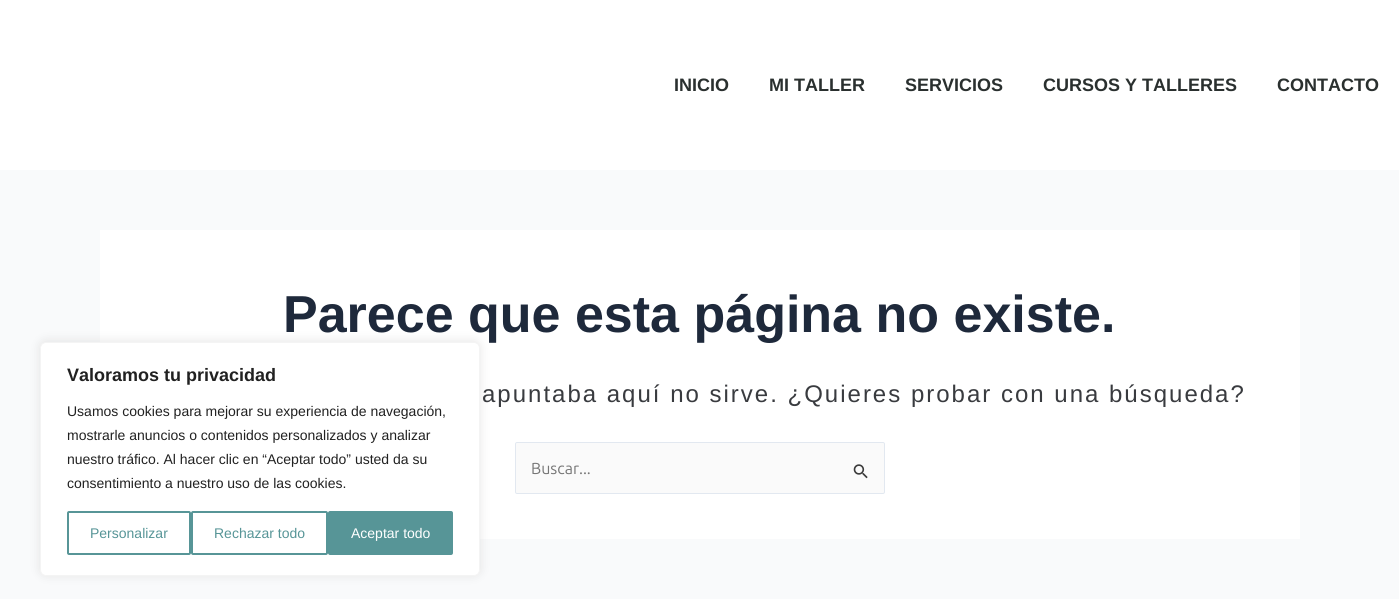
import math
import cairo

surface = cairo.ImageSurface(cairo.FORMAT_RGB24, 1399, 616)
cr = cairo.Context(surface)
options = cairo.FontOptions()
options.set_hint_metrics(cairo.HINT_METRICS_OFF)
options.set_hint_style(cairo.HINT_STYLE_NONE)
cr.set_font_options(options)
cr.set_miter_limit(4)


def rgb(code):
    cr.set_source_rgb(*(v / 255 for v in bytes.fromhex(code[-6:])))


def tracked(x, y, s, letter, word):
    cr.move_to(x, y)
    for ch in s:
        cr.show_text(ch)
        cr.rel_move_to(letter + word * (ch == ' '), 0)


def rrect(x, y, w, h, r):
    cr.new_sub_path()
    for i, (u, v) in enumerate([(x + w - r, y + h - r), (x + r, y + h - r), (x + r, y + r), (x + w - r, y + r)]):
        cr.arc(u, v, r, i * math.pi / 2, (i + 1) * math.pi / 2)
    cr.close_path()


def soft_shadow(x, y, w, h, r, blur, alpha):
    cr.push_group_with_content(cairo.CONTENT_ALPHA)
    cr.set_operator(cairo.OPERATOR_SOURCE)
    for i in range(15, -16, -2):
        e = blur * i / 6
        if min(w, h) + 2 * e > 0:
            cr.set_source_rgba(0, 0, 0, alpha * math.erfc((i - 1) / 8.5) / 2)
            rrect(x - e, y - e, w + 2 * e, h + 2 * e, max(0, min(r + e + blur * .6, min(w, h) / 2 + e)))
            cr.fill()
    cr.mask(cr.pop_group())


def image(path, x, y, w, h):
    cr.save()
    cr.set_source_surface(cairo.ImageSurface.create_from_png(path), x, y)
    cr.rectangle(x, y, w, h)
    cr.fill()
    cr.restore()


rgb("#f9fafb")
cr.paint()
rgb("#ffffff")
cr.rectangle(100, 230, 1200, 309)
cr.fill()
rgb("#acabab")
soft_shadow(40, 341, 440, 234, 6, 5, 0.3)
rgb("#ffffff")
cr.rectangle(0, 0, 1399, 170)
cr.fill()
rgb("#fafafa")
rrect(515.5, 442.5, 369, 51, 1.5)
cr.fill_preserve()
rgb("#e2e8f0")
cr.set_line_width(1)
cr.stroke()
image("img/1.png", 853, 464, 15, 15)
rgb("#ffffff")
cr.rectangle(0, 599, 1399, 17)
cr.fill()
cr.select_font_face("Liberation Sans", cairo.FONT_SLANT_NORMAL, cairo.FONT_WEIGHT_BOLD)
cr.set_font_size(18)
rgb("#2a302f")
for x, y, s in [
    (674, 91, "INICIO"),
    (769, 91, "MI TALLER"),
    (905, 91, "SERVICIOS"),
    (1043, 91, "CURSOS Y TALLERES"),
    (1277, 91, "CONTACTO"),
]:
    cr.move_to(x, y)
    cr.show_text(s)
cr.set_font_size(52)
rgb("#1e293b")
cr.move_to(283, 332)
cr.show_text("Parece que esta página no existe.")
rgb("#ffffff")
rrect(40.5, 342.5, 439, 233, 5.5)
cr.fill_preserve()
rgb("#f4f4f4")
cr.stroke()
rgb("#579597")
rrect(329, 512, 123, 42, 1)
cr.fill_preserve()
cr.set_line_width(2)
cr.stroke()
cr.select_font_face("Liberation Sans")
cr.set_font_size(14)
rgb("#ffffff")
cr.move_to(351, 538)
cr.show_text("Aceptar todo")
rrect(192, 512, 135, 42, 1)
rgb("#579597")
cr.stroke()
cr.move_to(214, 538)
cr.show_text("Rechazar todo")
rrect(68, 512, 122, 42, 1)
cr.stroke()
cr.move_to(90, 538)
cr.show_text("Personalizar")
rgb("#212121")
for x, y, s in [
    (67, 488, "consentimiento a nuestro uso de las cookies."),
    (67, 464, "nuestro tráfico. Al hacer clic en “Aceptar todo” usted da su"),
    (67, 440, "mostrarle anuncios o contenidos personalizados y analizar"),
    (67, 416, "Usamos cookies para mejorar su experiencia de navegación,"),
]:
    cr.move_to(x, y)
    cr.show_text(s)
cr.select_font_face("Liberation Sans", cairo.FONT_SLANT_NORMAL, cairo.FONT_WEIGHT_BOLD)
cr.set_font_size(18)
cr.move_to(67, 381)
cr.show_text("Valoramos tu privacidad")
cr.select_font_face("Liberation Sans")
cr.set_font_size(24)
rgb("#393b3f")
tracked(482, 402, "apuntaba aquí no sirve. ¿Quieres probar con una búsqueda?", 2, 0)
cr.select_font_face("Ubuntu")
cr.set_font_size(16)
rgb("#757575")
cr.move_to(531, 474)
cr.show_text("Buscar...")
surface.write_to_png("page.png")
